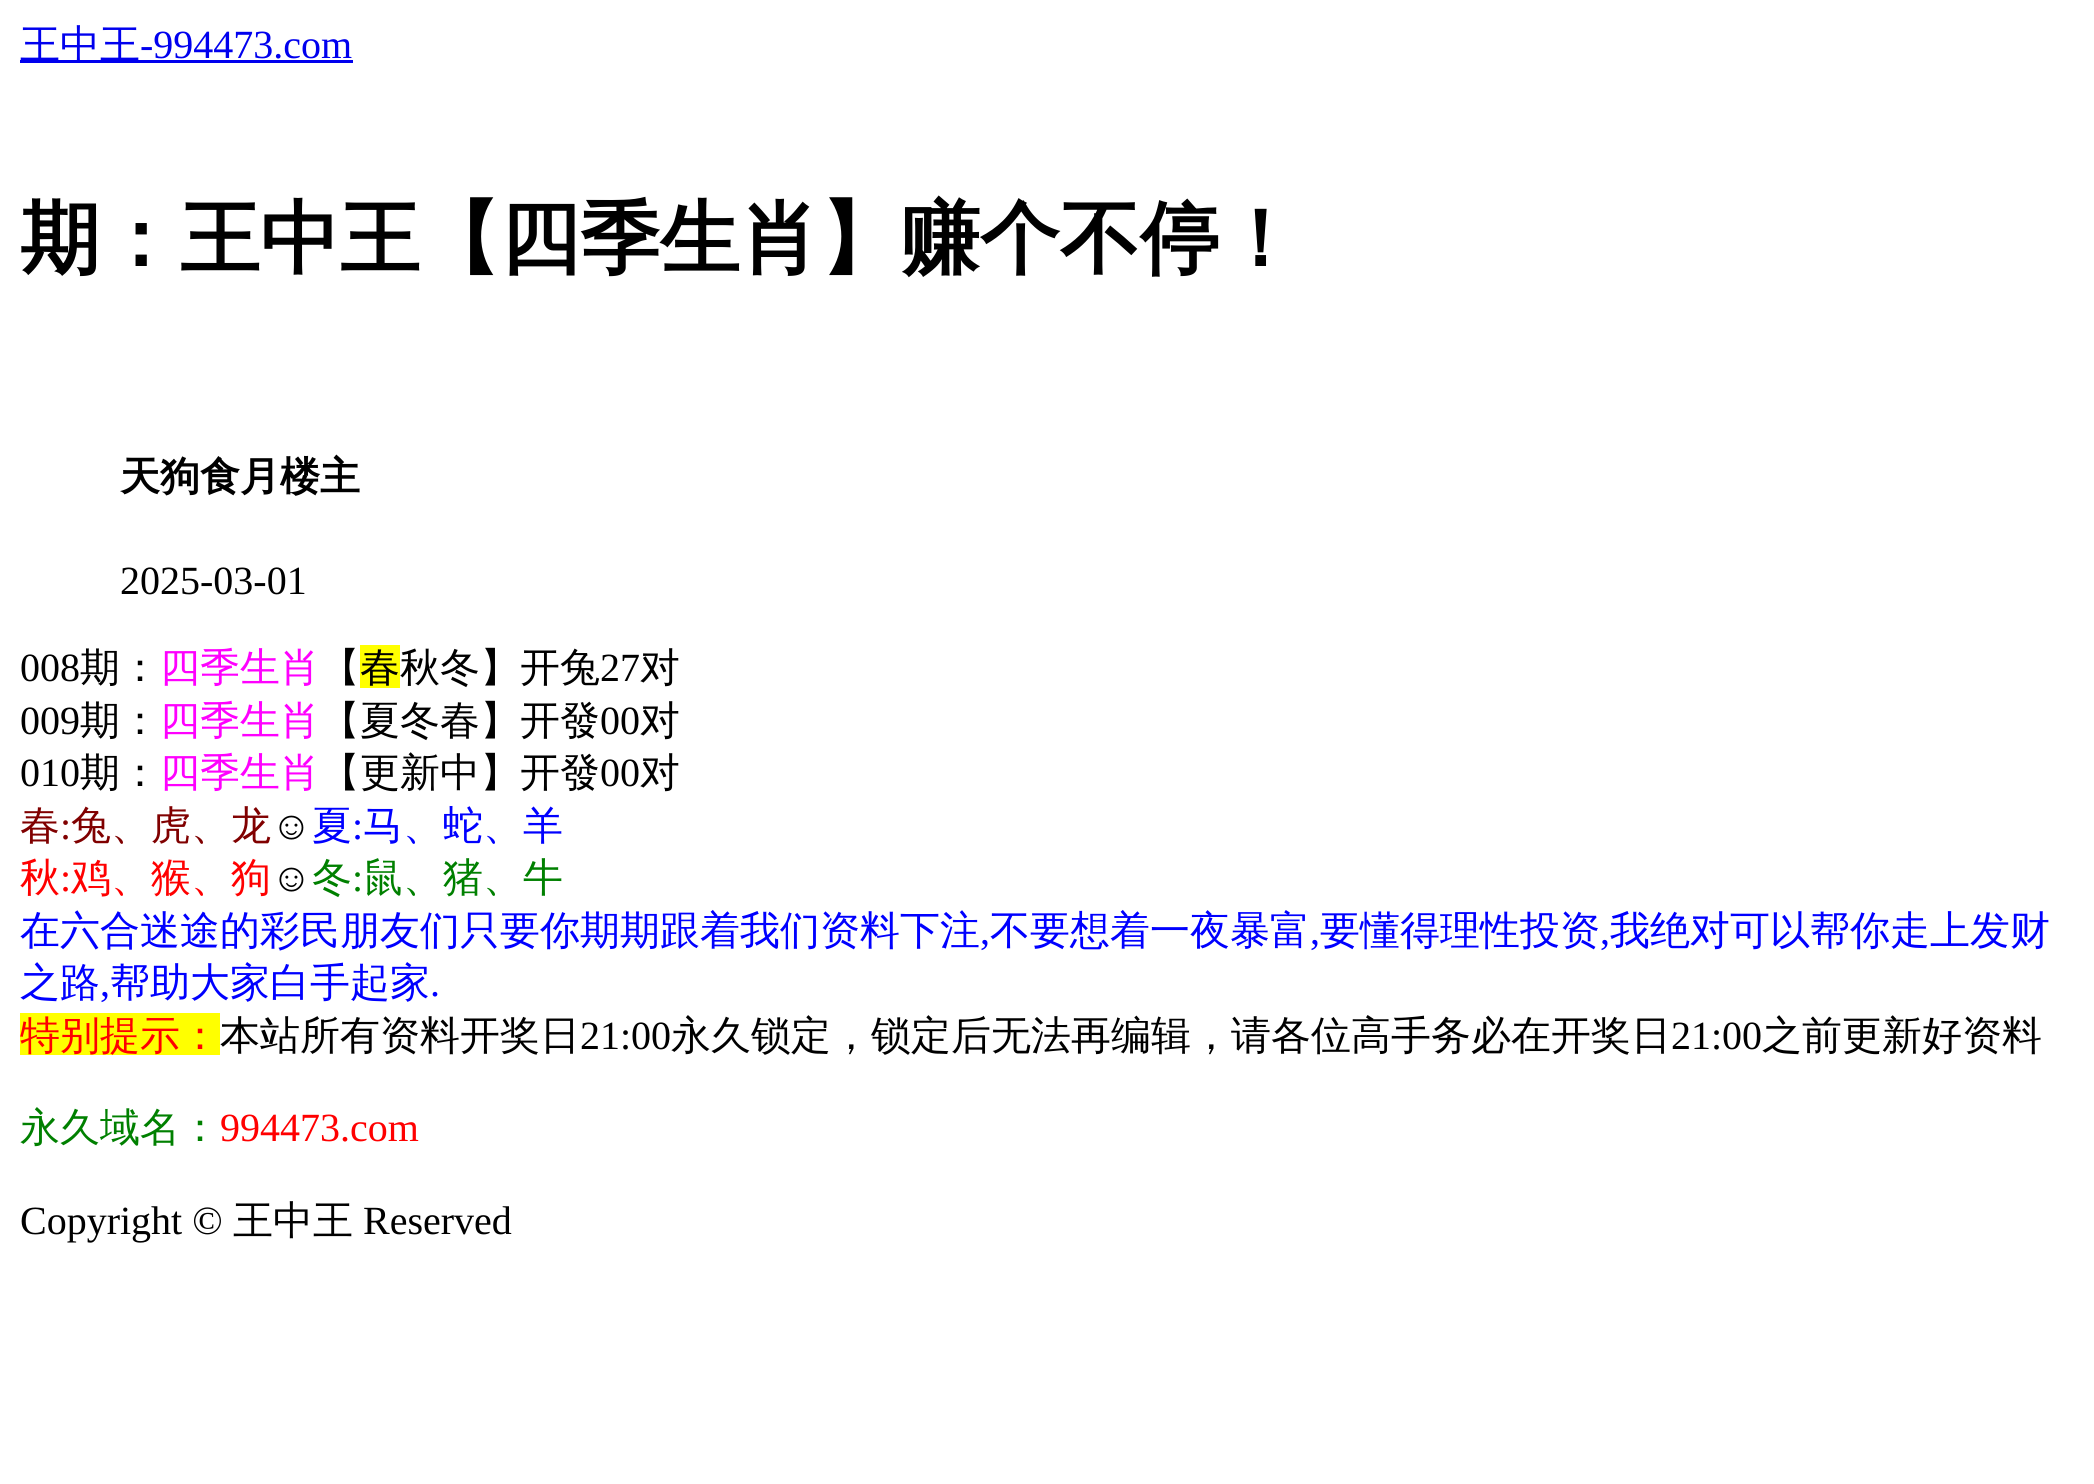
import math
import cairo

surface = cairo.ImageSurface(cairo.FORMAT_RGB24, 2094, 1484)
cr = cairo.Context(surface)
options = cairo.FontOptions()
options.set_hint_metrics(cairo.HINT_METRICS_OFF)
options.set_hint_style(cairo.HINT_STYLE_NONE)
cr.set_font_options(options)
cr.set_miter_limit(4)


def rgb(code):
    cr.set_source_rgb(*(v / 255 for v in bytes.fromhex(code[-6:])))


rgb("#ffffff")
cr.paint()
for x, y, w, h, color in [
    (20, 60, 333, 3, "#0000ee"),
    (360, 645, 40, 43, "#ffff00"),
    (20, 1013, 200, 42, "#ffff00"),
]:
    rgb(color)
    cr.rectangle(x, y, w, h)
    cr.fill()
cr.select_font_face("WenQuanYi Zen Hei Medium")
cr.set_font_size(40)
rgb("#0000ee")
cr.move_to(20, 58)
cr.show_text("王中王")
cr.select_font_face("Liberation Serif")
cr.move_to(140, 58)
cr.show_text("-994473.com")
cr.select_font_face("WenQuanYi Zen Hei", cairo.FONT_SLANT_NORMAL, cairo.FONT_WEIGHT_BOLD)
cr.set_font_size(80)
rgb("#000000")
cr.move_to(20, 266)
cr.show_text("期：王中王【四季生肖】赚个不停！")
cr.set_font_size(40)
cr.move_to(120, 490)
cr.show_text("天狗食月楼主")
cr.select_font_face("Liberation Serif")
cr.move_to(120, 594)
cr.show_text("2025-03-01")
cr.move_to(20, 681)
cr.show_text("008")
cr.select_font_face("WenQuanYi Zen Hei Medium")
cr.move_to(80, 681)
cr.show_text("期：")
rgb("#ff00ff")
cr.move_to(160, 681)
cr.show_text("四季生肖")
rgb("#000000")
cr.move_to(320, 681)
cr.show_text("【")
cr.move_to(360, 681)
cr.show_text("春秋冬】开兔")
cr.select_font_face("Liberation Serif")
cr.move_to(600, 681)
cr.show_text("27")
cr.select_font_face("WenQuanYi Zen Hei Medium")
cr.move_to(640, 681)
cr.show_text("对")
cr.select_font_face("Liberation Serif")
cr.move_to(20, 734)
cr.show_text("009")
cr.select_font_face("WenQuanYi Zen Hei Medium")
cr.move_to(80, 734)
cr.show_text("期：")
rgb("#ff00ff")
cr.move_to(160, 734)
cr.show_text("四季生肖")
rgb("#000000")
cr.move_to(320, 734)
cr.show_text("【夏冬春】开發")
cr.select_font_face("Liberation Serif")
cr.move_to(600, 734)
cr.show_text("00")
cr.select_font_face("WenQuanYi Zen Hei Medium")
cr.move_to(640, 734)
cr.show_text("对")
cr.select_font_face("Liberation Serif")
cr.move_to(20, 786)
cr.show_text("010")
cr.select_font_face("WenQuanYi Zen Hei Medium")
cr.move_to(80, 786)
cr.show_text("期：")
rgb("#ff00ff")
cr.move_to(160, 786)
cr.show_text("四季生肖")
rgb("#000000")
cr.move_to(320, 786)
cr.show_text("【更新中】开發")
cr.select_font_face("Liberation Serif")
cr.move_to(600, 786)
cr.show_text("00")
cr.select_font_face("WenQuanYi Zen Hei Medium")
cr.move_to(640, 786)
cr.show_text("对")
rgb("#800000")
cr.move_to(20, 839)
cr.show_text("春")
cr.select_font_face("Liberation Serif")
cr.move_to(60, 839)
cr.show_text(":")
cr.select_font_face("WenQuanYi Zen Hei Medium")
cr.move_to(71, 839)
cr.show_text("兔、虎、龙")
cr.select_font_face("Liberation Serif")
rgb("#000000")
cr.move_to(271, 839)
cr.show_text("☺")
cr.select_font_face("WenQuanYi Zen Hei Medium")
rgb("#0000ff")
cr.move_to(312, 839)
cr.show_text("夏")
cr.select_font_face("Liberation Serif")
cr.move_to(352, 839)
cr.show_text(":")
cr.select_font_face("WenQuanYi Zen Hei Medium")
cr.move_to(363, 839)
cr.show_text("马、蛇、羊")
rgb("#ff0000")
cr.move_to(20, 891)
cr.show_text("秋")
cr.select_font_face("Liberation Serif")
cr.move_to(60, 891)
cr.show_text(":")
cr.select_font_face("WenQuanYi Zen Hei Medium")
cr.move_to(71, 891)
cr.show_text("鸡、猴、狗")
cr.select_font_face("Liberation Serif")
rgb("#000000")
cr.move_to(271, 891)
cr.show_text("☺")
cr.select_font_face("WenQuanYi Zen Hei Medium")
rgb("#008000")
cr.move_to(312, 891)
cr.show_text("冬")
cr.select_font_face("Liberation Serif")
cr.move_to(352, 891)
cr.show_text(":")
cr.select_font_face("WenQuanYi Zen Hei Medium")
cr.move_to(363, 891)
cr.show_text("鼠、猪、牛")
rgb("#0000ff")
cr.move_to(20, 944)
cr.show_text("在六合迷途的彩民朋友们只要你期期跟着我们资料下注")
cr.select_font_face("Liberation Serif")
cr.move_to(980, 944)
cr.show_text(",")
cr.select_font_face("WenQuanYi Zen Hei Medium")
cr.move_to(990, 944)
cr.show_text("不要想着一夜暴富")
cr.select_font_face("Liberation Serif")
cr.move_to(1310, 944)
cr.show_text(",")
cr.select_font_face("WenQuanYi Zen Hei Medium")
cr.move_to(1320, 944)
cr.show_text("要懂得理性投资")
cr.select_font_face("Liberation Serif")
cr.move_to(1600, 944)
cr.show_text(",")
cr.select_font_face("WenQuanYi Zen Hei Medium")
cr.move_to(1610, 944)
cr.show_text("我绝对可以帮你走上发财")
cr.move_to(20, 996)
cr.show_text("之路")
cr.select_font_face("Liberation Serif")
cr.move_to(100, 996)
cr.show_text(",")
cr.select_font_face("WenQuanYi Zen Hei Medium")
cr.move_to(110, 996)
cr.show_text("帮助大家白手起家")
cr.select_font_face("Liberation Serif")
cr.move_to(430, 996)
cr.show_text(".")
cr.select_font_face("WenQuanYi Zen Hei Medium")
rgb("#ff0000")
cr.move_to(20, 1049)
cr.show_text("特别提示：")
rgb("#000000")
cr.move_to(220, 1049)
cr.show_text("本站所有资料开奖日")
cr.select_font_face("Liberation Serif")
cr.move_to(580, 1049)
cr.show_text("21:00")
cr.select_font_face("WenQuanYi Zen Hei Medium")
cr.move_to(671, 1049)
cr.show_text("永久锁定，锁定后无法再编辑，请各位高手务必在开奖日")
cr.select_font_face("Liberation Serif")
cr.move_to(1671, 1049)
cr.show_text("21:00")
cr.select_font_face("WenQuanYi Zen Hei Medium")
cr.move_to(1762, 1049)
cr.show_text("之前更新好资料")
rgb("#008000")
cr.move_to(20, 1141)
cr.show_text("永久域名：")
cr.select_font_face("Liberation Serif")
rgb("#ff0000")
cr.move_to(220, 1141)
cr.show_text("994473.com")
rgb("#000000")
cr.move_to(20, 1234)
cr.show_text("Copyright ©")
cr.select_font_face("WenQuanYi Zen Hei Medium")
cr.move_to(233, 1234)
cr.show_text("王中王")
cr.select_font_face("Liberation Serif")
cr.move_to(363, 1234)
cr.show_text("Reserved")
surface.write_to_png("page.png")
